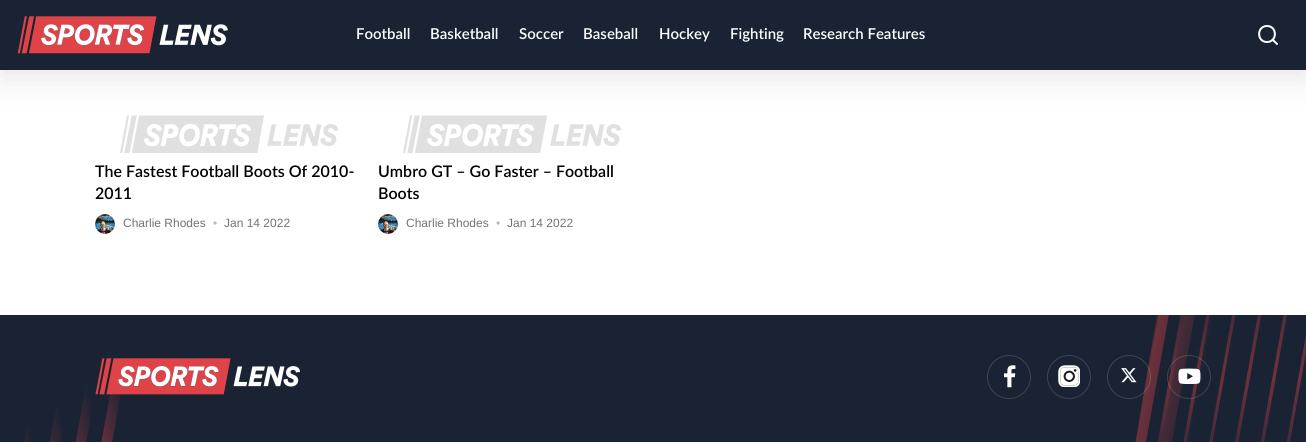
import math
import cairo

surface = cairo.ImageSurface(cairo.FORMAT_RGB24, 1306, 442)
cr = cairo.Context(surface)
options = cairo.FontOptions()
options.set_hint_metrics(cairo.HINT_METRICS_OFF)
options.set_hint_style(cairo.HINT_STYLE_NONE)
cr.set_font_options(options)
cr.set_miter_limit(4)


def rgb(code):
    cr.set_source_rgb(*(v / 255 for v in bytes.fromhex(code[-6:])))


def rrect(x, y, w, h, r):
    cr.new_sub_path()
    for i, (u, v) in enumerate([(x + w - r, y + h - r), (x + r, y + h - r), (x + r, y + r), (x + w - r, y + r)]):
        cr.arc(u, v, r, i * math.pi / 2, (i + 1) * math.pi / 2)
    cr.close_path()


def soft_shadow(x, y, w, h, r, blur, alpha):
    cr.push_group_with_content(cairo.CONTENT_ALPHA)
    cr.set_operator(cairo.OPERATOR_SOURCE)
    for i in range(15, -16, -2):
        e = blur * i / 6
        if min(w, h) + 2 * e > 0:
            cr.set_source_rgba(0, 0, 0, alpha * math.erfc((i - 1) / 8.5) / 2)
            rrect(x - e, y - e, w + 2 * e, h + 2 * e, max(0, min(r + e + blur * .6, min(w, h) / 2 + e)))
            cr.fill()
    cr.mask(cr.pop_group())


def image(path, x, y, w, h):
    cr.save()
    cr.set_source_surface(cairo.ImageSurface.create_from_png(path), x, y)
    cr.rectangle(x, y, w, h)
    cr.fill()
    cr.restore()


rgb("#ffffff")
cr.paint()
image("img/2.png", 120, 115, 219, 38)
image("img/2.png", 403, 115, 219, 38)
rgb("#000000")
soft_shadow(0, 8, 1306, 70, 0, 16, 0.1)
rgb("#192333")
cr.rectangle(0, 0, 1306, 70)
cr.fill()
image("img/1.png", 17, 16, 211, 38)
cr.new_path()
cr.move_to(1267, 42)
cr.curve_to(1277.5, 42, 1277.5, 26, 1267, 26)
cr.curve_to(1256.5, 26, 1256.5, 42, 1267, 42)
cr.close_path()
cr.move_to(1277, 44)
cr.line_to(1272.5, 39.5)
rgb("#ffffff")
cr.set_line_cap(cairo.LINE_CAP_ROUND)
cr.set_line_join(cairo.LINE_JOIN_ROUND)
cr.stroke()
image("img/3.png", 95, 214, 20, 20)
image("img/3.png", 378, 214, 20, 20)
rgb("#192333")
cr.rectangle(0, 315, 1306, 127)
cr.fill()
image("img/4.png", 24, 315, 1282, 127)
image("img/5.png", 95, 358, 205, 37)
cr.arc(1009, 377, 21.5, 0, 2 * math.pi)
rgb("#3c4452")
cr.set_line_width(1)
cr.set_line_cap(cairo.LINE_CAP_BUTT)
cr.set_line_join(cairo.LINE_JOIN_MITER)
cr.stroke()
image("img/6.png", 1004, 365, 12, 23)
cr.arc(1069, 377, 21.5, 0, 2 * math.pi)
cr.stroke()
image("img/7.png", 1058, 365, 22, 22)
cr.arc(1129, 377, 21.5, 0, 2 * math.pi)
cr.set_source_rgba(1, 1, 1, 0.15)
cr.stroke()
image("img/8.png", 1121, 368, 16, 15)
cr.arc(1189, 377, 21.5, 0, 2 * math.pi)
cr.stroke()
image("img/9.png", 1178, 368, 23, 16)
cr.select_font_face("Lato SemiBold")
cr.set_font_size(15)
rgb("#ffffff")
for x, y, s in [
    (356, 39, "Football"),
    (430, 39, "Basketball"),
    (519, 39, "Soccer"),
    (583, 39, "Baseball"),
    (659, 39, "Hockey"),
    (730, 39, "Fighting"),
    (803, 39, "Research Features"),
]:
    cr.move_to(x, y)
    cr.show_text(s)
cr.set_font_size(16)
rgb("#000000")
cr.move_to(95, 177)
cr.show_text("The Fastest Football Boots Of 2010-")
cr.move_to(95, 199)
cr.show_text("2011")
cr.select_font_face("Liberation Sans")
cr.set_font_size(12)
rgb("#737373")
cr.move_to(123, 227)
cr.show_text("Charlie Rhodes")
rgb("#b9b9b9")
cr.move_to(213, 227)
cr.show_text("•")
rgb("#737373")
cr.move_to(224, 227)
cr.show_text("Jan 14 2022")
cr.select_font_face("Lato SemiBold")
cr.set_font_size(16)
rgb("#000000")
cr.move_to(378, 177)
cr.show_text("Umbro GT – Go Faster – Football")
cr.move_to(378, 199)
cr.show_text("Boots")
cr.select_font_face("Liberation Sans")
cr.set_font_size(12)
rgb("#737373")
cr.move_to(406, 227)
cr.show_text("Charlie Rhodes")
rgb("#b9b9b9")
cr.move_to(496, 227)
cr.show_text("•")
rgb("#737373")
cr.move_to(507, 227)
cr.show_text("Jan 14 2022")
surface.write_to_png("page.png")
